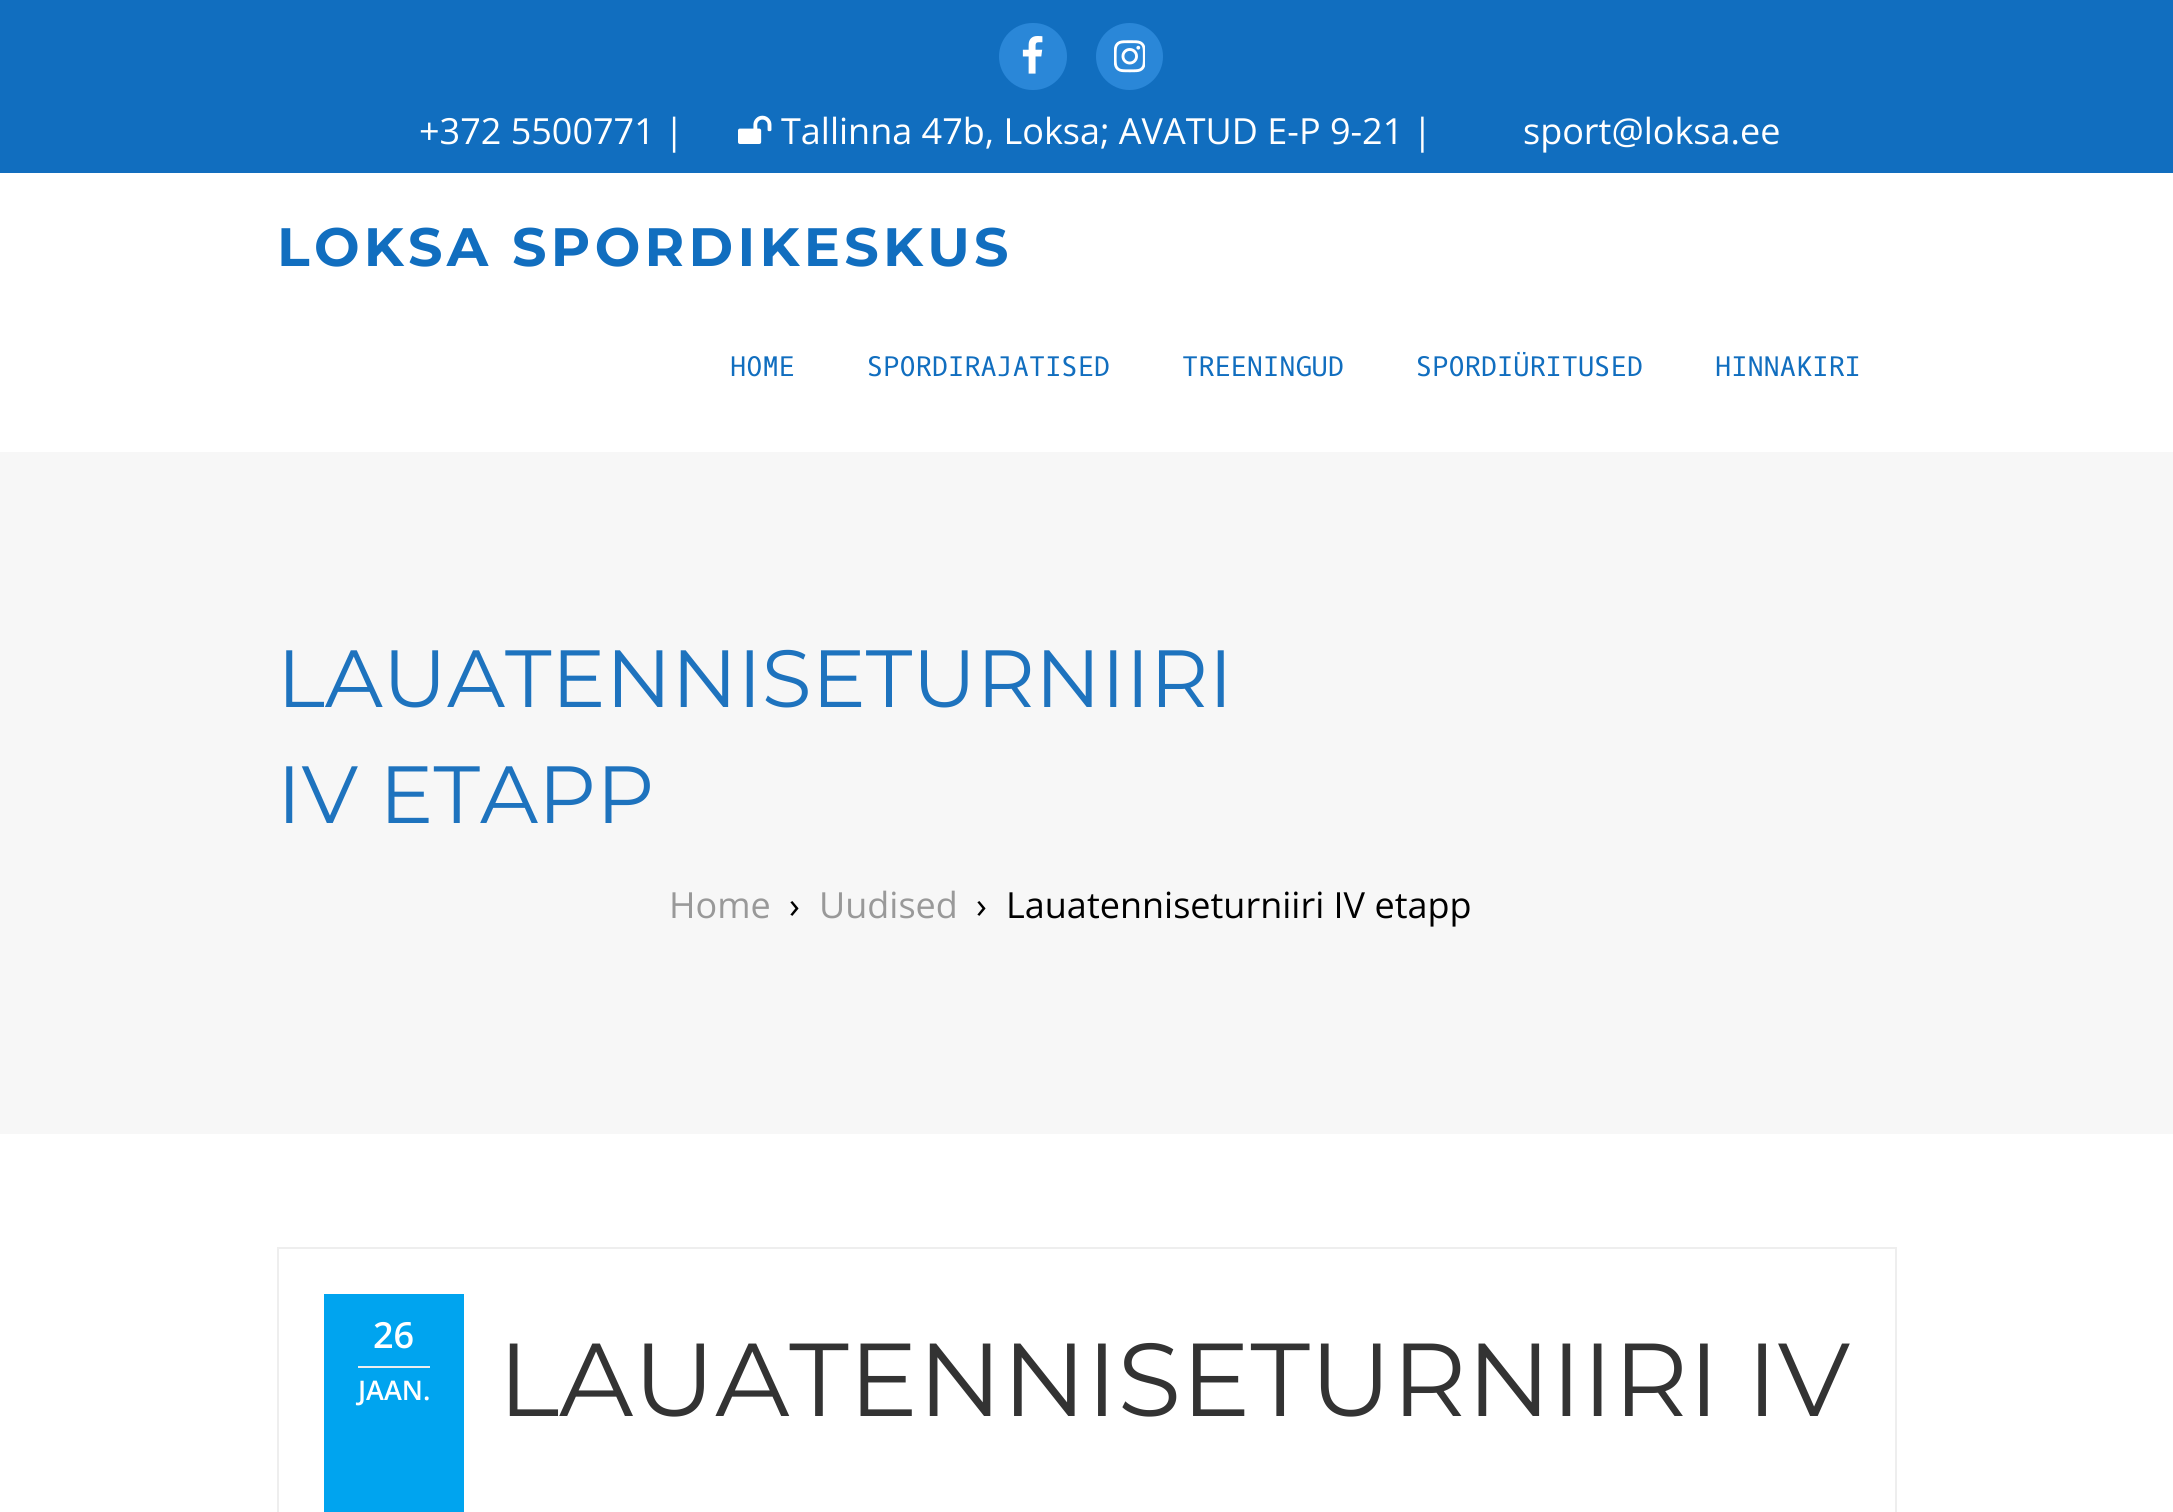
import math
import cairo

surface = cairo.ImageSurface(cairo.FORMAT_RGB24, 2173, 1512)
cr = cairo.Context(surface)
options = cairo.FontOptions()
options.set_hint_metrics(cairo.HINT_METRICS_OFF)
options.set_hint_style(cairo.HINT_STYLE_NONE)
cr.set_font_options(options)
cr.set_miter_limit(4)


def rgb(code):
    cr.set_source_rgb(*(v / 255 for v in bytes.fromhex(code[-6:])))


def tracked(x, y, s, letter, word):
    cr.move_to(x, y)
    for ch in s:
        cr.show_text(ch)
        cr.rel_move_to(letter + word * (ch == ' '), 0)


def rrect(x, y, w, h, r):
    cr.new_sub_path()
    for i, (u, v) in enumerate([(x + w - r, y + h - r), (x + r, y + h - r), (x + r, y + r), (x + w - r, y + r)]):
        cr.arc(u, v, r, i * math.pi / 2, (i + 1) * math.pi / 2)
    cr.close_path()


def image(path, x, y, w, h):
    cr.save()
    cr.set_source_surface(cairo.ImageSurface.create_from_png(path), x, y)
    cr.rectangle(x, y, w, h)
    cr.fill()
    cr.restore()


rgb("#116ebf")
cr.paint()
rgb("#2a87d8")
rrect(999, 23, 68, 67, 33.5)
cr.fill()
image("img/1.png", 1022, 36, 21, 38)
cr.arc(1129.5, 56.5, 33.5, 0, 2 * math.pi)
cr.fill()
image("img/2.png", 1114, 40, 31, 33)
image("img/3.png", 738, 115, 34, 29)
for x, y, w, h, color in [
    (0, 173, 2173, 279, "#ffffff"),
    (0, 452, 2173, 682, "#f7f7f7"),
    (0, 1134, 2173, 378, "#ffffff"),
]:
    rgb(color)
    cr.rectangle(x, y, w, h)
    cr.fill()
cr.rectangle(278, 1248, 1618, 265)
rgb("#eeeeee")
cr.stroke()
rgb("#00a4ef")
cr.rectangle(324, 1294, 140, 218)
cr.fill()
rgb("#eeeeee")
cr.rectangle(358, 1366, 72, 2)
cr.fill()
cr.select_font_face("Open Sans")
cr.set_font_size(36)
rgb("#ffffff")
for x, y, s in [
    (419, 144, "+372 5500771 |"),
    (781, 144, "Tallinna 47b, Loksa; AVATUD E-P 9-21 |"),
    (1523, 144, "sport@loksa.ee"),
]:
    cr.move_to(x, y)
    cr.show_text(s)
cr.select_font_face("Montserrat", cairo.FONT_SLANT_NORMAL, cairo.FONT_WEIGHT_BOLD)
cr.set_font_size(54)
rgb("#116ebf")
tracked(277, 266, "LOKSA SPORDIKESKUS", 4.3, 0)
cr.select_font_face("Oxygen Mono")
cr.set_font_size(27)
for x, y, s in [
    (730, 376, "HOME"),
    (867, 376, "SPORDIRAJATISED"),
    (1182, 376, "TREENINGUD"),
    (1416, 376, "SPORDIÜRITUSED"),
    (1715, 376, "HINNAKIRI"),
]:
    cr.move_to(x, y)
    cr.show_text(s)
cr.select_font_face("Montserrat")
cr.set_font_size(81)
rgb("#1e73be")
cr.move_to(277, 707)
cr.show_text("LAUATENNISETURNIIRI")
cr.move_to(277, 823)
cr.show_text("IV ETAPP")
cr.select_font_face("Open Sans")
cr.set_font_size(36)
rgb("#999999")
cr.move_to(669, 918)
cr.show_text("Home")
rgb("#000000")
cr.move_to(789, 918)
cr.show_text("›")
rgb("#999999")
cr.move_to(819, 918)
cr.show_text("Uudised")
rgb("#000000")
cr.move_to(976, 918)
cr.show_text("›")
cr.move_to(1006, 918)
cr.show_text("Lauatenniseturniiri IV etapp")
cr.select_font_face("Open Sans SemiBold")
rgb("#ffffff")
cr.move_to(373, 1348)
cr.show_text("26")
cr.set_font_size(27)
cr.move_to(358, 1400)
cr.show_text("JAAN.")
cr.select_font_face("Montserrat")
cr.set_font_size(103.5)
rgb("#333333")
cr.move_to(498, 1416)
cr.show_text("LAUATENNISETURNIIRI IV")
surface.write_to_png("page.png")
